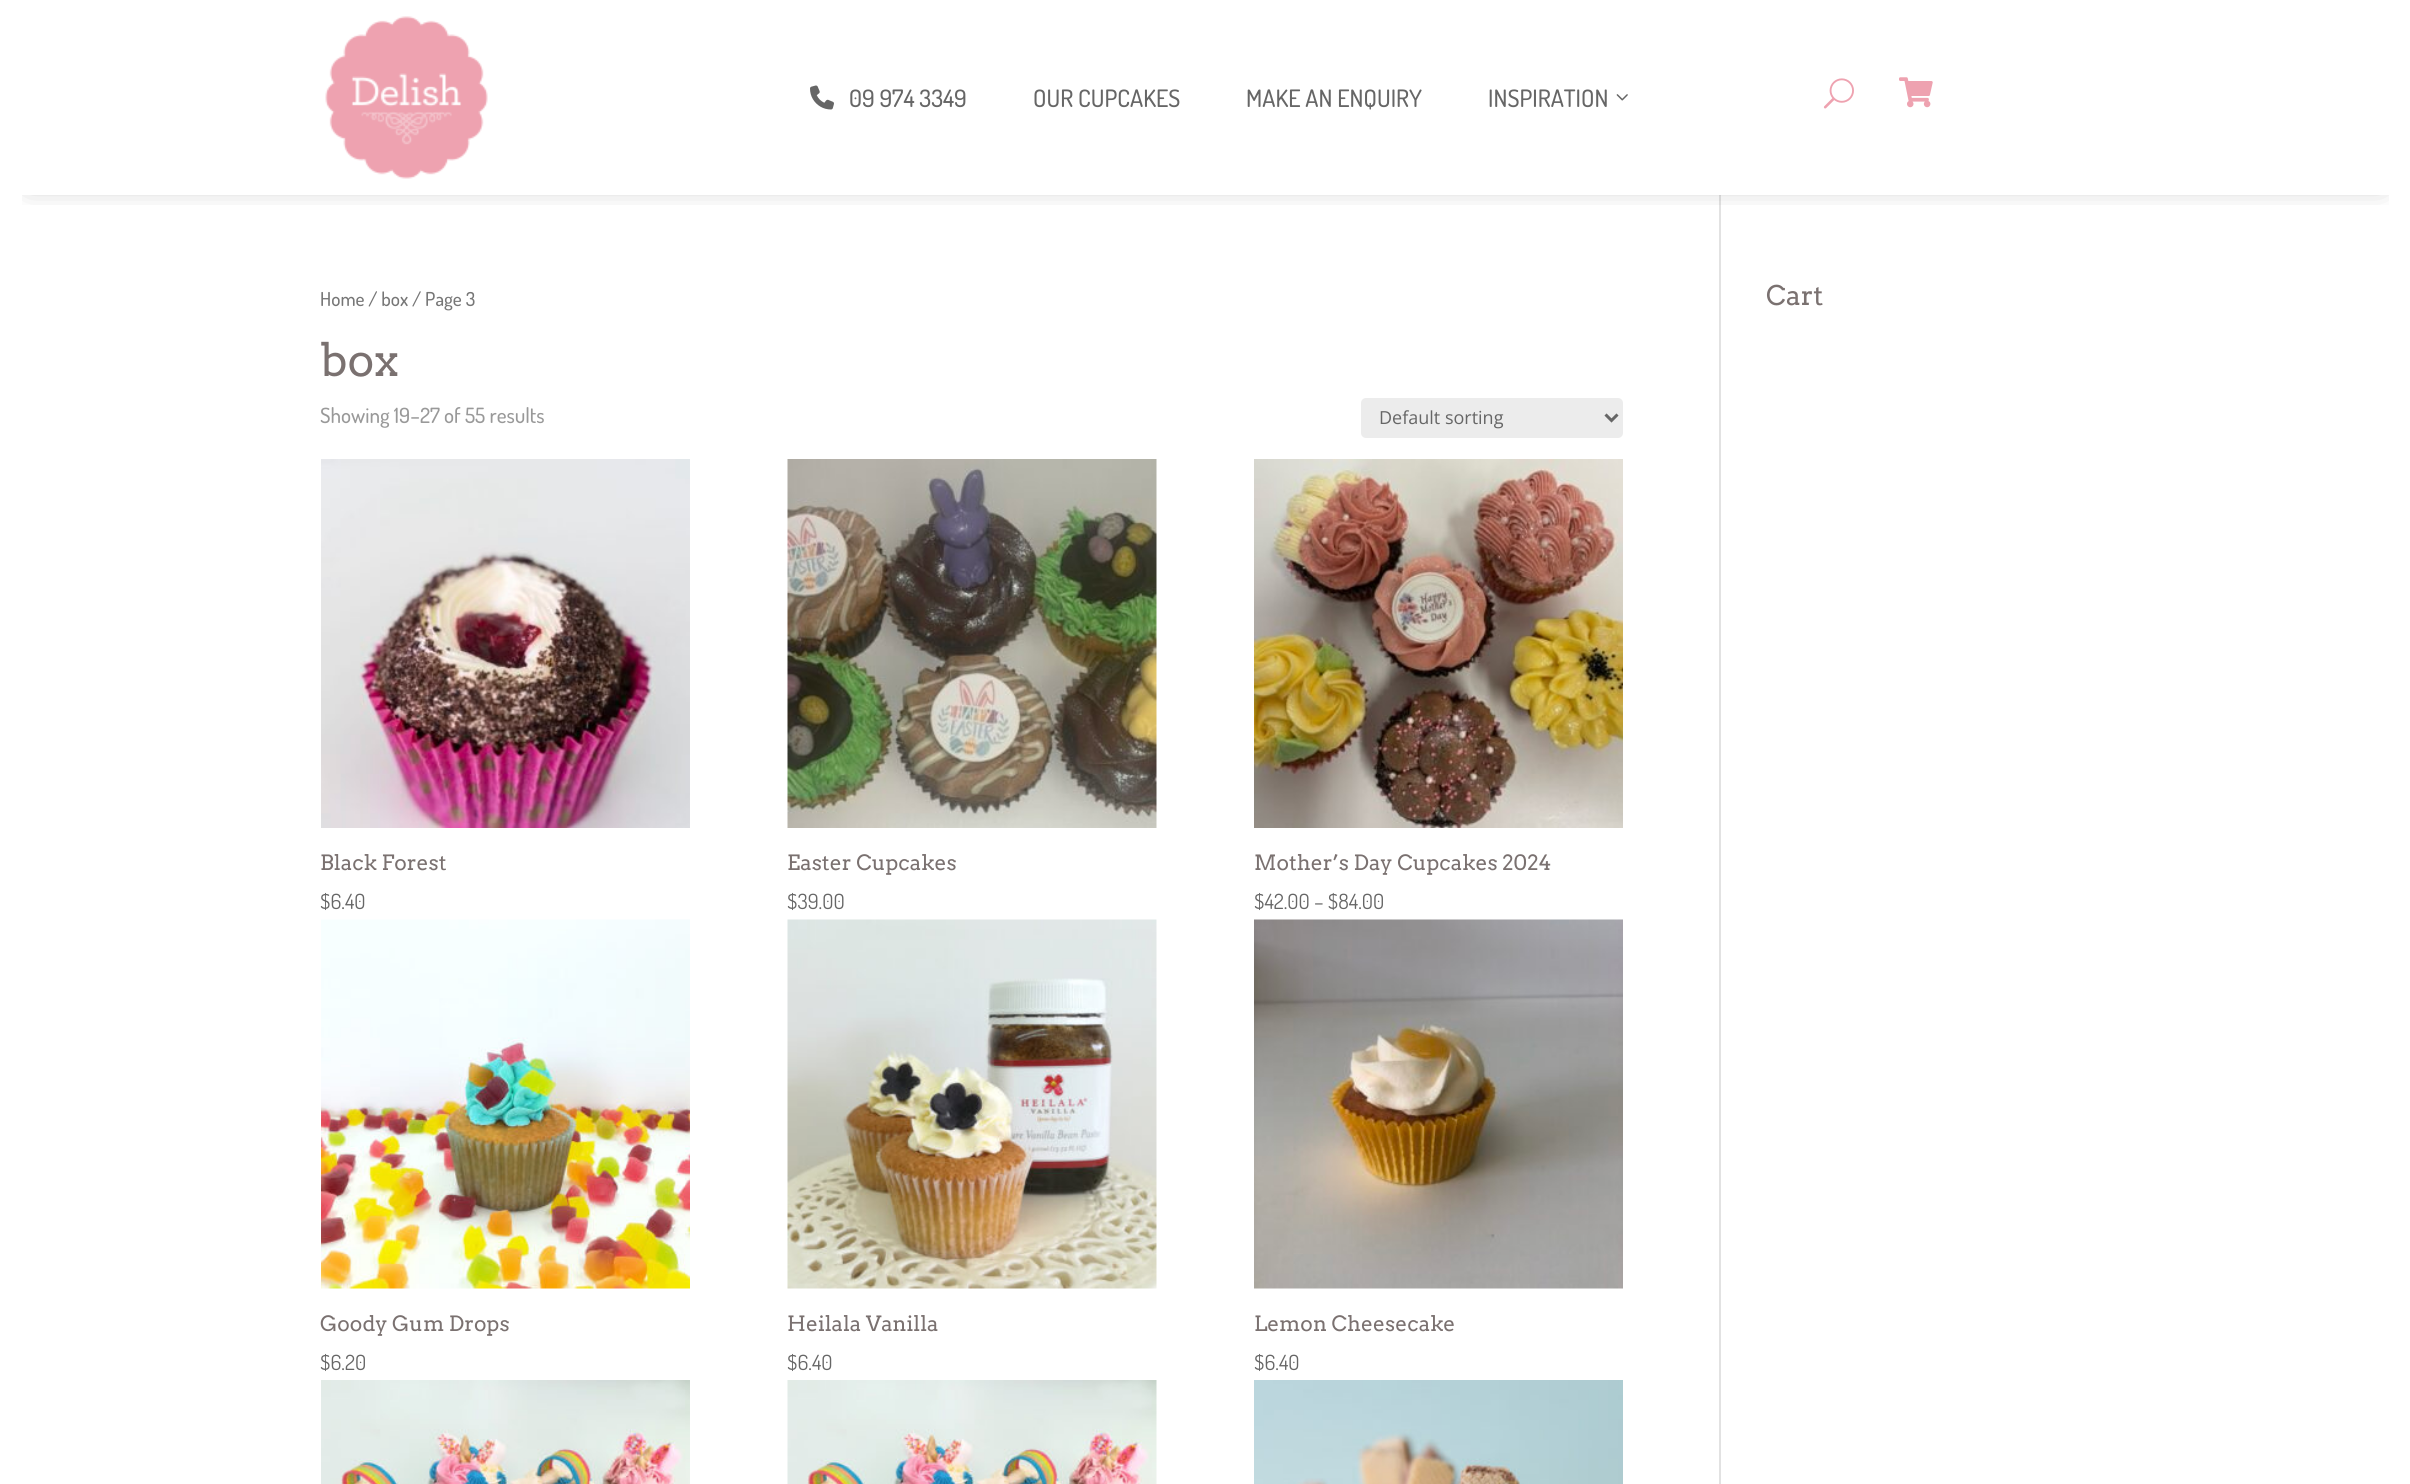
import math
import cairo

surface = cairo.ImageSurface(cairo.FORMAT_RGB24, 2410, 1484)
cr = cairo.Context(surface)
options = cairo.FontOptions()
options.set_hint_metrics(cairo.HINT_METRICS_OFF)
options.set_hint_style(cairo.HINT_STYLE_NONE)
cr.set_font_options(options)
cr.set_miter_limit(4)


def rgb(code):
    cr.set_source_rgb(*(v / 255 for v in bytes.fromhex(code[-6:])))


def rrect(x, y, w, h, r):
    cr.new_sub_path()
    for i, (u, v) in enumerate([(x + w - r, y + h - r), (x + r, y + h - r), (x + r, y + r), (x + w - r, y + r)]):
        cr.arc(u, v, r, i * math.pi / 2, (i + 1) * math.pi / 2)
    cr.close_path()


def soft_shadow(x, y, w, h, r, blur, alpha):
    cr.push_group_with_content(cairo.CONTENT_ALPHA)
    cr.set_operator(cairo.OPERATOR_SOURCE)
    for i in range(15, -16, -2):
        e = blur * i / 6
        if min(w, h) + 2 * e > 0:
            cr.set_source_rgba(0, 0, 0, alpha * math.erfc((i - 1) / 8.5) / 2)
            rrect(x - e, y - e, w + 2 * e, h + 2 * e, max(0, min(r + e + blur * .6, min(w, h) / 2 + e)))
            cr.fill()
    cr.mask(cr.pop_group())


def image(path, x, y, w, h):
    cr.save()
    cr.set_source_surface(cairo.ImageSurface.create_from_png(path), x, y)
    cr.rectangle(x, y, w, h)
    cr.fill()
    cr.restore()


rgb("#ffffff")
cr.paint()
rgb("#e2e2e2")
cr.rectangle(1719, 195, 2, 1289)
cr.fill()
cr.save()
cr.rectangle(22, 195, 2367, 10)
cr.clip()
rgb("#000000")
soft_shadow(29, 47, 2353, 138, 0, 13.5, 0.3)
cr.restore()
image("img/1.png", 325, 16, 163, 163)
image("img/2.png", 810, 85, 24, 25)
image("img/3.png", 1616, 94, 12, 7)
image("img/4.png", 1823, 78, 31, 31)
image("img/5.png", 1899, 77, 34, 31)
rgb("#ececec")
rrect(1361, 398, 262, 40, 5)
cr.fill()
cr.new_path()
cr.move_to(1605.5, 414.5)
cr.line_to(1611.5, 420.5)
cr.line_to(1617.5, 414.5)
rgb("#666666")
cr.set_line_width(3)
cr.stroke()
image("img/6.png", 321, 459, 369, 369)
image("img/7.png", 787, 459, 370, 369)
image("img/8.png", 1254, 459, 369, 369)
image("img/9.png", 321, 919, 369, 370)
image("img/10.png", 787, 919, 370, 370)
image("img/11.png", 1254, 919, 369, 370)
image("img/12.png", 321, 1380, 369, 104)
image("img/13.png", 787, 1380, 370, 104)
image("img/14.png", 1254, 1380, 369, 104)
cr.select_font_face("Dosis Medium")
cr.set_font_size(24)
for x, y, s in [
    (849, 107, "09 974 3349"),
    (1033, 107, "OUR CUPCAKES"),
    (1246, 107, "MAKE AN ENQUIRY"),
    (1488, 107, "INSPIRATION"),
]:
    cr.move_to(x, y)
    cr.show_text(s)
cr.set_font_size(19.25)
rgb("#767676")
cr.move_to(320, 306)
cr.show_text("Home / box / Page 3")
cr.select_font_face("Arvo")
cr.set_font_size(45)
rgb("#7a7170")
cr.move_to(320, 376)
cr.show_text("box")
cr.select_font_face("Dosis Medium")
cr.set_font_size(21)
rgb("#999999")
cr.move_to(320, 423)
cr.show_text("Showing 19–27 of 55 results")
cr.select_font_face("Open Sans")
cr.set_font_size(18)
rgb("#666666")
cr.move_to(1379, 424)
cr.show_text("Default sorting")
cr.select_font_face("Arvo")
cr.set_font_size(21)
rgb("#7a7170")
cr.move_to(320, 870)
cr.show_text("Black Forest")
cr.select_font_face("Dosis")
rgb("#666666")
cr.move_to(320, 909)
cr.show_text("$6.40")
cr.select_font_face("Arvo")
rgb("#7a7170")
cr.move_to(787, 870)
cr.show_text("Easter Cupcakes")
cr.select_font_face("Dosis")
rgb("#666666")
cr.move_to(787, 909)
cr.show_text("$39.00")
cr.select_font_face("Arvo")
rgb("#7a7170")
cr.move_to(1254, 870)
cr.show_text("Mother’s Day Cupcakes 2024")
cr.select_font_face("Dosis")
rgb("#666666")
cr.move_to(1254, 909)
cr.show_text("$42.00 – $84.00")
cr.select_font_face("Arvo")
rgb("#7a7170")
cr.move_to(320, 1331)
cr.show_text("Goody Gum Drops")
cr.select_font_face("Dosis")
rgb("#666666")
cr.move_to(320, 1370)
cr.show_text("$6.20")
cr.select_font_face("Arvo")
rgb("#7a7170")
cr.move_to(787, 1331)
cr.show_text("Heilala Vanilla")
cr.select_font_face("Dosis")
rgb("#666666")
cr.move_to(787, 1370)
cr.show_text("$6.40")
cr.select_font_face("Arvo")
rgb("#7a7170")
cr.move_to(1254, 1331)
cr.show_text("Lemon Cheesecake")
cr.select_font_face("Dosis")
rgb("#666666")
cr.move_to(1254, 1370)
cr.show_text("$6.40")
cr.select_font_face("Arvo")
cr.set_font_size(27)
rgb("#7a7170")
cr.move_to(1766, 305)
cr.show_text("Cart")
surface.write_to_png("page.png")
